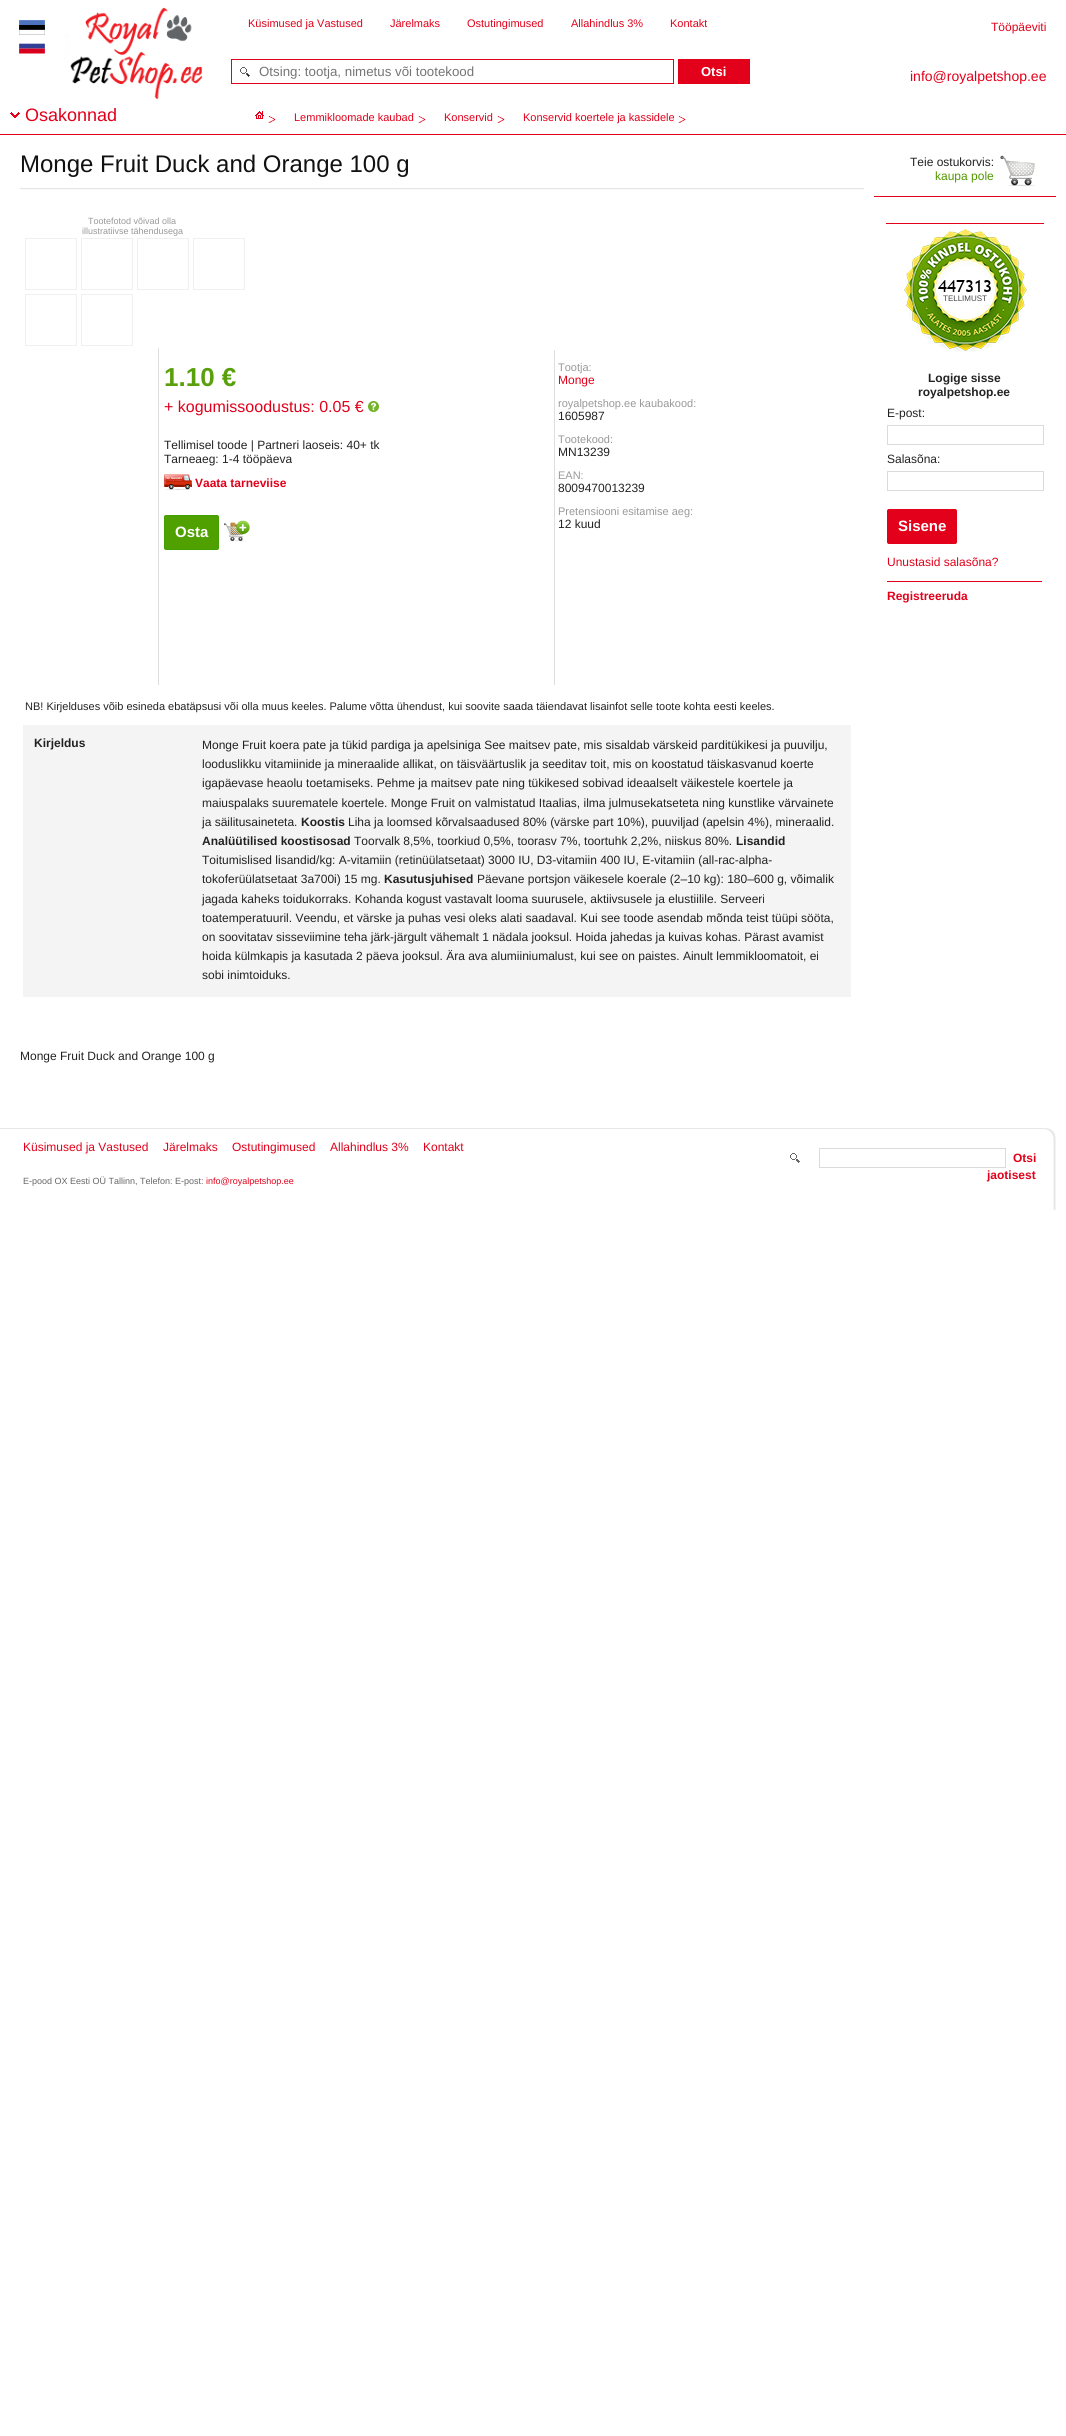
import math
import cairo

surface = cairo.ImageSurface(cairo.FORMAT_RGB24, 1066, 2436)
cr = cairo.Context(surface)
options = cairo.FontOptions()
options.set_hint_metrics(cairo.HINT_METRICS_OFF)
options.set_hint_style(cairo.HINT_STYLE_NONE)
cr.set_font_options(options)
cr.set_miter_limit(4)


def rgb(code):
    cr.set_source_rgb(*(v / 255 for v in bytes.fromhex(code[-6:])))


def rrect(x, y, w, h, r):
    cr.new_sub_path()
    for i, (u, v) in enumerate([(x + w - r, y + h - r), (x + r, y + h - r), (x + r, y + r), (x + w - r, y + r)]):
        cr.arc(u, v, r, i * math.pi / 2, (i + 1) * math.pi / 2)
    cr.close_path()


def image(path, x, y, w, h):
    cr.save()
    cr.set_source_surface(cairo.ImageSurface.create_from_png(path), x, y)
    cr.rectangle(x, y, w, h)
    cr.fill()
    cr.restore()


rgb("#ffffff")
cr.paint()
rgb("#e2001a")
cr.rectangle(0, 134, 1066, 1)
cr.fill()
image("img/1.png", 64, 7, 139, 93)
image("img/2.png", 19, 20, 26, 15)
image("img/3.png", 19, 43, 26, 11)
image("img/4.png", 231, 59, 443, 25)
cr.rectangle(678, 59, 6, 25)
cr.fill()
cr.rectangle(684, 59, 66, 25)
cr.fill()
image("img/5.png", 10, 112, 10, 6)
image("img/6.png", 268, 116, 8, 7)
image("img/7.png", 255, 111, 9, 8)
image("img/6.png", 418, 116, 8, 7)
image("img/6.png", 497, 116, 8, 7)
image("img/6.png", 678, 116, 8, 7)
image("img/8.png", 20, 188, 844, 2)
cr.rectangle(25.5, 238.5, 51, 51)
rgb("#f0f0f0")
cr.set_line_width(1)
cr.stroke()
cr.rectangle(81.5, 238.5, 51, 51)
cr.stroke()
cr.rectangle(137.5, 238.5, 51, 51)
cr.stroke()
cr.rectangle(193.5, 238.5, 51, 51)
cr.stroke()
cr.rectangle(25.5, 294.5, 51, 51)
cr.stroke()
cr.rectangle(81.5, 294.5, 51, 51)
cr.stroke()
rgb("#dedede")
cr.rectangle(158, 348, 1, 337)
cr.fill()
cr.rectangle(554, 350, 1, 335)
cr.fill()
image("img/9.png", 368, 401, 11, 11)
image("img/10.png", 164, 474, 28, 16)
rgb("#50a000")
rrect(164.5, 515.5, 54, 34, 1.5)
cr.fill_preserve()
rgb("#42a000")
cr.stroke()
image("img/11.png", 224, 520, 26, 22)
rgb("#f4f4f4")
cr.rectangle(23, 725, 828, 272)
cr.fill()
rgb("#e2001a")
cr.rectangle(874, 196, 182, 1)
cr.fill()
image("img/12.png", 1000, 155, 35, 31)
cr.rectangle(886, 223, 158, 1)
cr.fill()
image("img/13.png", 904, 229, 123, 123)
cr.rectangle(887.5, 425.5, 156, 19)
rgb("#dbdbdb")
cr.stroke()
cr.rectangle(887.5, 471.5, 156, 19)
cr.stroke()
rgb("#e2001a")
rrect(887.5, 509.5, 69, 34, 1.5)
cr.fill_preserve()
cr.stroke()
cr.rectangle(887, 581, 155, 1)
cr.fill()
rgb("#e7e7e7")
cr.rectangle(0, 1128, 1045, 1)
cr.fill()
image("img/14.png", 1045, 1128, 21, 82)
image("img/15.png", 790, 1153, 10, 10)
cr.rectangle(819.5, 1148.5, 186, 19)
rgb("#dbdbdb")
cr.stroke()
cr.select_font_face("Liberation Sans")
cr.set_font_size(11)
rgb("#e2001a")
for x, y, s in [
    (248, 27, "Küsimused ja Vastused"),
    (390, 27, "Järelmaks"),
    (467, 27, "Ostutingimused"),
    (571, 27, "Allahindlus 3%"),
    (670, 27, "Kontakt"),
]:
    cr.move_to(x, y)
    cr.show_text(s)
cr.set_font_size(12)
cr.move_to(991, 31)
cr.show_text("Tööpäeviti")
cr.set_font_size(13.3)
rgb("#757575")
cr.move_to(259, 76)
cr.show_text("Otsing: tootja, nimetus või tootekood")
cr.select_font_face("Liberation Sans", cairo.FONT_SLANT_NORMAL, cairo.FONT_WEIGHT_BOLD)
cr.set_font_size(13)
rgb("#ffffff")
cr.move_to(701, 76)
cr.show_text("Otsi")
cr.select_font_face("Liberation Sans")
cr.set_font_size(14)
rgb("#e2001a")
cr.move_to(910, 81)
cr.show_text("info@royalpetshop.ee")
cr.set_font_size(18)
cr.move_to(25, 121)
cr.show_text("Osakonnad")
cr.set_font_size(11)
for x, y, s in [
    (294, 121, "Lemmikloomade kaubad"),
    (444, 121, "Konservid"),
    (523, 121, "Konservid koertele ja kassidele"),
]:
    cr.move_to(x, y)
    cr.show_text(s)
cr.set_font_size(24)
rgb("#111111")
cr.move_to(20, 172)
cr.show_text("Monge Fruit Duck and Orange 100 g")
cr.set_font_size(9)
rgb("#999999")
cr.move_to(88, 224)
cr.show_text("Tootefotod võivad olla")
cr.move_to(82, 234)
cr.show_text("illustratiivse tähendusega")
cr.select_font_face("Liberation Sans", cairo.FONT_SLANT_NORMAL, cairo.FONT_WEIGHT_BOLD)
cr.set_font_size(26)
rgb("#5aa00d")
cr.move_to(164, 386)
cr.show_text("1.10 €")
cr.select_font_face("Liberation Sans")
cr.set_font_size(16)
rgb("#e2001a")
cr.move_to(164, 412)
cr.show_text("+ kogumissoodustus: 0.05 €")
cr.set_font_size(12)
rgb("#222222")
cr.move_to(164, 449)
cr.show_text("Tellimisel toode | Partneri laoseis: 40+ tk")
cr.move_to(164, 463)
cr.show_text("Tarneaeg: 1-4 tööpäeva")
cr.select_font_face("Liberation Sans", cairo.FONT_SLANT_NORMAL, cairo.FONT_WEIGHT_BOLD)
rgb("#e2001a")
cr.move_to(195, 487)
cr.show_text("Vaata tarneviise")
cr.set_font_size(15)
rgb("#ffffff")
cr.move_to(175, 537)
cr.show_text("Osta")
cr.select_font_face("Liberation Sans")
cr.set_font_size(11)
rgb("#999999")
cr.move_to(558, 371)
cr.show_text("Tootja:")
cr.set_font_size(12)
rgb("#e2001a")
cr.move_to(558, 384)
cr.show_text("Monge")
cr.set_font_size(11)
rgb("#999999")
cr.move_to(558, 407)
cr.show_text("royalpetshop.ee kaubakood:")
cr.set_font_size(12)
rgb("#222222")
cr.move_to(558, 420)
cr.show_text("1605987")
cr.set_font_size(11)
rgb("#999999")
cr.move_to(558, 443)
cr.show_text("Tootekood:")
cr.set_font_size(12)
rgb("#222222")
cr.move_to(558, 456)
cr.show_text("MN13239")
cr.set_font_size(11)
rgb("#999999")
cr.move_to(558, 479)
cr.show_text("EAN:")
cr.set_font_size(12)
rgb("#222222")
cr.move_to(558, 492)
cr.show_text("8009470013239")
cr.set_font_size(11)
rgb("#999999")
cr.move_to(558, 515)
cr.show_text("Pretensiooni esitamise aeg:")
cr.set_font_size(12)
rgb("#222222")
cr.move_to(558, 528)
cr.show_text("12 kuud")
cr.set_font_size(11)
cr.move_to(25, 710)
cr.show_text("NB! Kirjelduses võib esineda ebatäpsusi või olla muus keeles. Palume võtta ühendust, kui soovite saada täiendavat lisainfot selle toote kohta eesti keeles.")
cr.select_font_face("Liberation Sans", cairo.FONT_SLANT_NORMAL, cairo.FONT_WEIGHT_BOLD)
cr.set_font_size(12)
cr.move_to(34, 747)
cr.show_text("Kirjeldus")
cr.select_font_face("Liberation Sans")
for x, y, s in [
    (202, 749, "Monge Fruit koera pate ja tükid pardiga ja apelsiniga See maitsev pate, mis sisaldab värskeid parditükikesi ja puuvilju,"),
    (202, 768, "looduslikku vitamiinide ja mineraalide allikat, on täisväärtuslik ja seeditav toit, mis on koostatud täiskasvanud koerte"),
    (202, 787, "igapäevase heaolu toetamiseks. Pehme ja maitsev pate ning tükikesed sobivad ideaalselt väikestele koertele ja"),
    (202, 807, "maiuspalaks suurematele koertele. Monge Fruit on valmistatud Itaalias, ilma julmusekatseteta ning kunstlike värvainete"),
    (202, 826, "ja säilitusaineteta."),
]:
    cr.move_to(x, y)
    cr.show_text(s)
cr.select_font_face("Liberation Sans", cairo.FONT_SLANT_NORMAL, cairo.FONT_WEIGHT_BOLD)
cr.move_to(301, 826)
cr.show_text("Koostis")
cr.select_font_face("Liberation Sans")
cr.move_to(348, 826)
cr.show_text("Liha ja loomsed kõrvalsaadused 80% (värske part 10%), puuviljad (apelsin 4%), mineraalid.")
cr.select_font_face("Liberation Sans", cairo.FONT_SLANT_NORMAL, cairo.FONT_WEIGHT_BOLD)
cr.move_to(202, 845)
cr.show_text("Analüütilised koostisosad")
cr.select_font_face("Liberation Sans")
cr.move_to(354, 845)
cr.show_text("Toorvalk 8,5%, toorkiud 0,5%, toorasv 7%, toortuhk 2,2%, niiskus 80%.")
cr.select_font_face("Liberation Sans", cairo.FONT_SLANT_NORMAL, cairo.FONT_WEIGHT_BOLD)
cr.move_to(736, 845)
cr.show_text("Lisandid")
cr.select_font_face("Liberation Sans")
cr.move_to(202, 864)
cr.show_text("Toitumislised lisandid/kg: A-vitamiin (retinüülatsetaat) 3000 IU, D3-vitamiin 400 IU, E-vitamiin (all-rac-alpha-")
cr.move_to(202, 883)
cr.show_text("tokoferüülatsetaat 3a700i) 15 mg.")
cr.select_font_face("Liberation Sans", cairo.FONT_SLANT_NORMAL, cairo.FONT_WEIGHT_BOLD)
cr.move_to(384, 883)
cr.show_text("Kasutusjuhised")
cr.select_font_face("Liberation Sans")
for x, y, s in [
    (477, 883, "Päevane portsjon väikesele koerale (2–10 kg): 180–600 g, võimalik"),
    (202, 903, "jagada kaheks toidukorraks. Kohanda kogust vastavalt looma suurusele, aktiivsusele ja elustiilile. Serveeri"),
    (202, 922, "toatemperatuuril. Veendu, et värske ja puhas vesi oleks alati saadaval. Kui see toode asendab mõnda teist tüüpi sööta,"),
    (202, 941, "on soovitatav sisseviimine teha järk-järgult vähemalt 1 nädala jooksul. Hoida jahedas ja kuivas kohas. Pärast avamist"),
    (202, 960, "hoida külmkapis ja kasutada 2 päeva jooksul. Ära ava alumiiniumalust, kui see on paistes. Ainult lemmikloomatoit, ei"),
    (202, 979, "sobi inimtoiduks."),
    (20, 1060, "Monge Fruit Duck and Orange 100 g"),
    (910, 166, "Teie ostukorvis:"),
]:
    cr.move_to(x, y)
    cr.show_text(s)
rgb("#529800")
cr.move_to(935, 180)
cr.show_text("kaupa pole")
cr.set_font_size(8)
rgb("#444444")
cr.move_to(943, 301)
cr.show_text("TELLIMUST")
cr.select_font_face("Liberation Sans", cairo.FONT_SLANT_NORMAL, cairo.FONT_WEIGHT_BOLD)
cr.set_font_size(12)
rgb("#222222")
cr.move_to(928, 382)
cr.show_text("Logige sisse")
cr.move_to(918, 396)
cr.show_text("royalpetshop.ee")
cr.select_font_face("Liberation Sans")
cr.move_to(887, 417)
cr.show_text("E-post:")
cr.move_to(887, 463)
cr.show_text("Salasõna:")
cr.select_font_face("Liberation Sans", cairo.FONT_SLANT_NORMAL, cairo.FONT_WEIGHT_BOLD)
cr.set_font_size(15)
rgb("#ffffff")
cr.move_to(898, 531)
cr.show_text("Sisene")
cr.select_font_face("Liberation Sans")
cr.set_font_size(12)
rgb("#e2001a")
cr.move_to(887, 566)
cr.show_text("Unustasid salasõna?")
cr.select_font_face("Liberation Sans", cairo.FONT_SLANT_NORMAL, cairo.FONT_WEIGHT_BOLD)
cr.move_to(887, 600)
cr.show_text("Registreeruda")
cr.select_font_face("Liberation Sans")
for x, y, s in [
    (23, 1151, "Küsimused ja Vastused"),
    (163, 1151, "Järelmaks"),
    (232, 1151, "Ostutingimused"),
    (330, 1151, "Allahindlus 3%"),
    (423, 1151, "Kontakt"),
]:
    cr.move_to(x, y)
    cr.show_text(s)
cr.set_font_size(9)
rgb("#666666")
cr.move_to(23, 1184)
cr.show_text("E-pood OX Eesti OÜ Tallinn, Telefon: E-post:")
rgb("#e2001a")
cr.move_to(206, 1184)
cr.show_text("info@royalpetshop.ee")
cr.select_font_face("Liberation Sans", cairo.FONT_SLANT_NORMAL, cairo.FONT_WEIGHT_BOLD)
cr.set_font_size(12)
cr.move_to(1013, 1162)
cr.show_text("Otsi")
cr.move_to(987, 1179)
cr.show_text("jaotisest")
surface.write_to_png("page.png")
